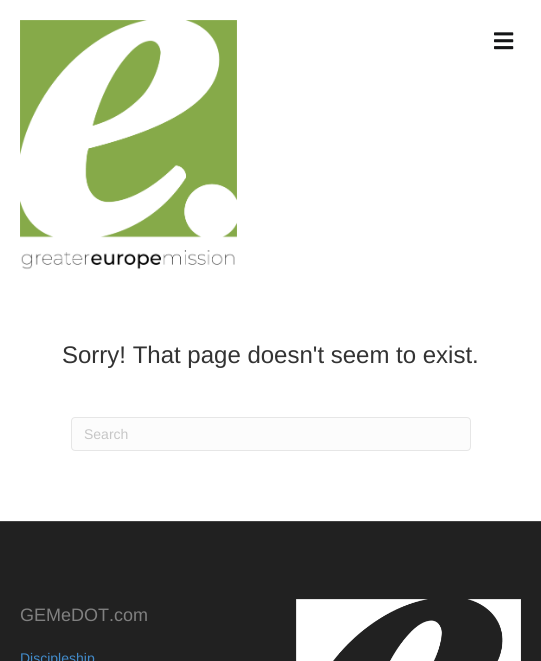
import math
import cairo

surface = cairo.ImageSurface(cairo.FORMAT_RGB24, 541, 661)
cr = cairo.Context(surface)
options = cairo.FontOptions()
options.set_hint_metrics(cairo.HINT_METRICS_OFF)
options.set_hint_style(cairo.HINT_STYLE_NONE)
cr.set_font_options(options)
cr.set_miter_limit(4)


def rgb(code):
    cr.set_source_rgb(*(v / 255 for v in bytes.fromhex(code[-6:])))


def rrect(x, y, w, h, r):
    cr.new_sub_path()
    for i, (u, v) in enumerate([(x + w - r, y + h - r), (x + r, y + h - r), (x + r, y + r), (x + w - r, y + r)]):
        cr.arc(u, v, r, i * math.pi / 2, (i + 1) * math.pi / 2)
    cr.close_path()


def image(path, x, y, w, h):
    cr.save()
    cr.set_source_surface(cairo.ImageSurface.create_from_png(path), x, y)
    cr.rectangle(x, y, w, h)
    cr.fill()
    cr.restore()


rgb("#ffffff")
cr.paint()
image("img/1.png", 20, 20, 217, 250)
image("img/2.png", 494, 32, 20, 18)
rgb("#fcfcfc")
rrect(71.5, 417.5, 399, 33, 3.5)
cr.fill_preserve()
rgb("#e6e6e6")
cr.set_line_width(1)
cr.stroke()
rgb("#212121")
cr.rectangle(0, 522, 541, 139)
cr.fill()
rgb("#424242")
cr.rectangle(0, 521, 541, 1)
cr.fill()
image("img/3.png", 296, 599, 225, 62)
cr.select_font_face("Liberation Sans")
cr.set_font_size(24)
rgb("#333333")
cr.move_to(62, 363)
cr.show_text("Sorry! That page doesn't seem to exist.")
cr.set_font_size(14)
rgb("#c6c6c6")
cr.move_to(84, 439)
cr.show_text("Search")
cr.set_font_size(18)
rgb("#808080")
cr.move_to(20, 621)
cr.show_text("GEMeDOT.com")
cr.set_font_size(14)
rgb("#428bca")
cr.move_to(20, 663)
cr.show_text("Discipleship")
surface.write_to_png("page.png")
